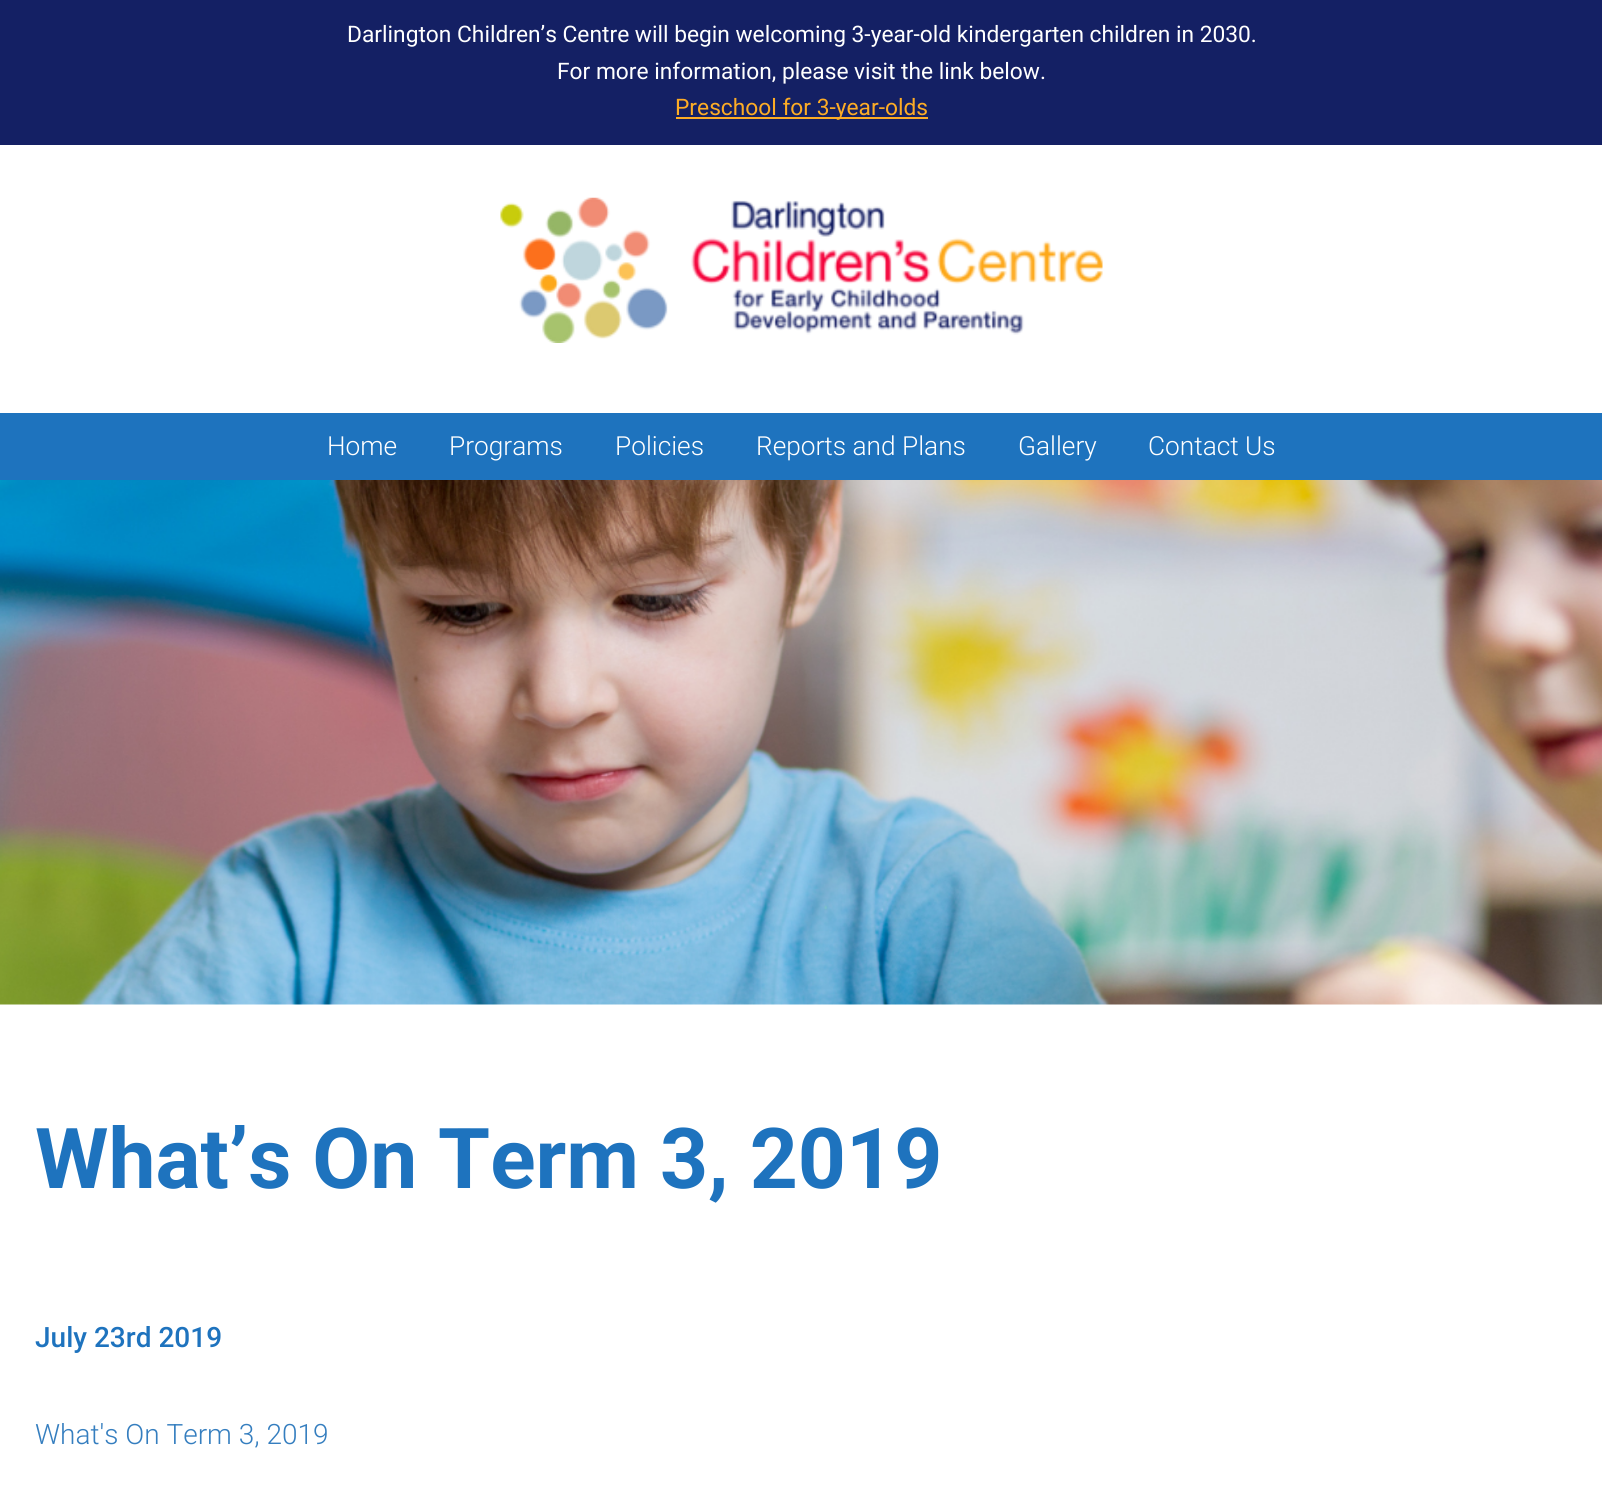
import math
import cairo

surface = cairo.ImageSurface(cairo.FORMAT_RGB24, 1602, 1504)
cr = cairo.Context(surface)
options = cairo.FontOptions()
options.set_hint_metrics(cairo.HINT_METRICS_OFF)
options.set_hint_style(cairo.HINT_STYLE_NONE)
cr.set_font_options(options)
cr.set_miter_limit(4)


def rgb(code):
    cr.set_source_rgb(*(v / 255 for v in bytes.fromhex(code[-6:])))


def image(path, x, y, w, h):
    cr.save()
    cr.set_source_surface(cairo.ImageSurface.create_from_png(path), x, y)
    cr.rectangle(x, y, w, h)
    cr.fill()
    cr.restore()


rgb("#ffffff")
cr.paint()
rgb("#142064")
cr.rectangle(0, 0, 1602, 145)
cr.fill()
rgb("#fdac25")
cr.rectangle(676, 117, 252, 2)
cr.fill()
image("img/1.png", 500, 197, 603, 146)
rgb("#1e73be")
cr.rectangle(0, 413, 1602, 67)
cr.fill()
image("img/2.png", 0, 480, 1602, 525)
cr.select_font_face("Roboto")
cr.set_font_size(22.75)
rgb("#ffffff")
cr.move_to(347, 42)
cr.show_text("Darlington Children’s Centre will begin welcoming 3-year-old kindergarten children in 2030.")
cr.move_to(557, 79)
cr.show_text("For more information, please visit the link below.")
rgb("#fdac25")
cr.move_to(675, 115)
cr.show_text("Preschool for 3-year-olds")
cr.select_font_face("Roboto Light")
cr.set_font_size(26.25)
rgb("#ffffff")
for x, y, s in [
    (327, 455, "Home"),
    (449, 455, "Programs"),
    (615, 455, "Policies"),
    (756, 455, "Reports and Plans"),
    (1018, 455, "Gallery"),
    (1148, 455, "Contact Us"),
]:
    cr.move_to(x, y)
    cr.show_text(s)
cr.select_font_face("Roboto", cairo.FONT_SLANT_NORMAL, cairo.FONT_WEIGHT_BOLD)
cr.set_font_size(84)
rgb("#1e73be")
cr.move_to(35, 1188)
cr.show_text("What’s On Term 3, 2019")
cr.select_font_face("Roboto Medium")
cr.set_font_size(28)
cr.move_to(35, 1347)
cr.show_text("July 23rd 2019")
cr.select_font_face("Roboto Light")
rgb("#357ebf")
cr.move_to(35, 1444)
cr.show_text("What's On Term 3, 2019")
surface.write_to_png("page.png")
